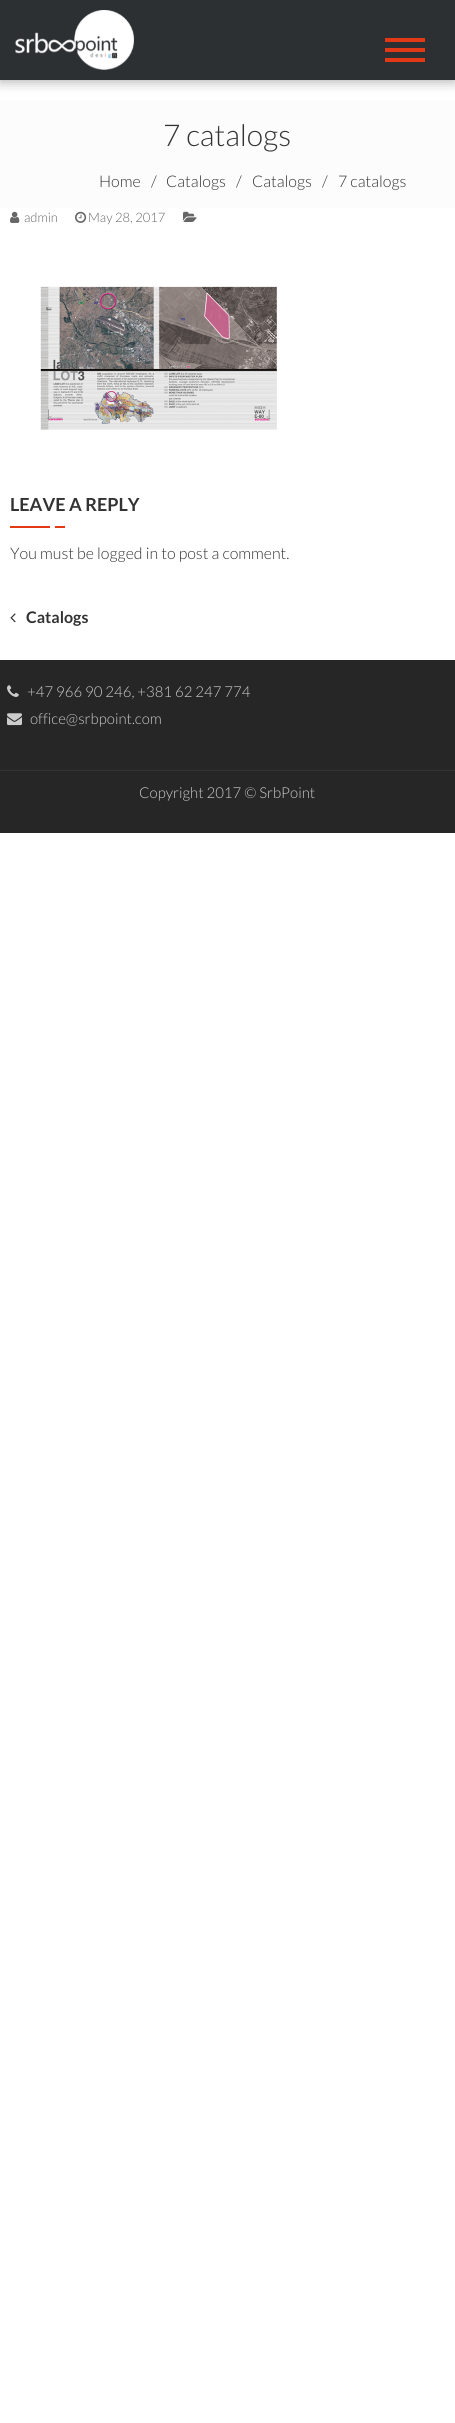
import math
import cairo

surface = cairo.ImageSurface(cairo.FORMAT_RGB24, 455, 2423)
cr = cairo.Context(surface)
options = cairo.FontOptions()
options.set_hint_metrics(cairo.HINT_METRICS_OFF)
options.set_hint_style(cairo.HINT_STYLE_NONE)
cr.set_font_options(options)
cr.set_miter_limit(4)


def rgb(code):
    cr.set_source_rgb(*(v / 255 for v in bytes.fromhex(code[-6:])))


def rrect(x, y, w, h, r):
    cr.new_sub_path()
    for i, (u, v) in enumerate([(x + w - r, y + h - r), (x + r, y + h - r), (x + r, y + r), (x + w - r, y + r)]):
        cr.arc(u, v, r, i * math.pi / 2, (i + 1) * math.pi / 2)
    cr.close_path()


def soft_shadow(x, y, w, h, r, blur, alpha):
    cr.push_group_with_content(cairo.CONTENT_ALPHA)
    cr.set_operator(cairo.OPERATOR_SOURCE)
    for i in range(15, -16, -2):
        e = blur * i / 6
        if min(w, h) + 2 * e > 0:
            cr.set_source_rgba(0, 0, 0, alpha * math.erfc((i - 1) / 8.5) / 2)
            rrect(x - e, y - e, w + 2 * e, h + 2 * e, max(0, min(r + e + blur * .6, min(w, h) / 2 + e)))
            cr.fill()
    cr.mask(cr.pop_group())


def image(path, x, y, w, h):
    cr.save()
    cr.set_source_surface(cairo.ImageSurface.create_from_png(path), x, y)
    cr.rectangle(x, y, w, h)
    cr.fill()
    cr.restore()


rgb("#ffffff")
cr.paint()
rgb("#fcfcfc")
cr.rectangle(0, 100, 455, 108)
cr.fill()
rgb("#000000")
soft_shadow(0, 2, 455, 80, 0, 6, 0.3)
rgb("#2d3032")
cr.rectangle(0, 0, 455, 80)
cr.fill()
image("img/1.png", 15, 10, 119, 60)
for x, y, w, h, color in [
    (385, 38, 40, 4, "#e23815"),
    (385, 58, 40, 4, "#e23815"),
    (385, 48, 40, 4, "#e23815"),
]:
    rgb(color)
    cr.rectangle(x, y, w, h)
    cr.fill()
image("img/2.png", 10, 211, 10, 12)
image("img/3.png", 75, 211, 12, 12)
image("img/4.png", 183, 211, 14, 11)
image("img/5.png", 40, 286, 237, 144)
cr.rectangle(10, 526, 40, 2)
cr.fill()
cr.rectangle(55, 526, 10, 2)
cr.fill()
image("img/6.png", 10, 613, 6, 10)
rgb("#262626")
cr.rectangle(0, 660, 455, 173)
cr.fill()
image("img/7.png", 7, 685, 12, 12)
image("img/8.png", 7, 713, 15, 13)
rgb("#333333")
cr.rectangle(0, 770, 455, 1)
cr.fill()
cr.select_font_face("Lato Light")
cr.set_font_size(30)
cr.move_to(163, 146)
cr.show_text("7 catalogs")
cr.set_font_size(16)
for x, y, s in [
    (99, 187, "Home"),
    (151, 187, "/"),
    (166, 187, "Catalogs"),
    (236, 187, "/"),
    (252, 187, "Catalogs"),
    (322, 187, "/"),
    (338, 187, "7 catalogs"),
]:
    cr.move_to(x, y)
    cr.show_text(s)
cr.set_font_size(13)
rgb("#666666")
cr.move_to(24, 222)
cr.show_text("admin")
cr.move_to(88, 222)
cr.show_text("May 28, 2017")
cr.select_font_face("Lato", cairo.FONT_SLANT_NORMAL, cairo.FONT_WEIGHT_BOLD)
cr.set_font_size(18)
rgb("#333333")
cr.move_to(10, 511)
cr.show_text("LEAVE A REPLY")
cr.select_font_face("Lato Light")
cr.set_font_size(16)
cr.move_to(10, 559)
cr.show_text("You must be logged in to post a comment.")
cr.select_font_face("Lato", cairo.FONT_SLANT_NORMAL, cairo.FONT_WEIGHT_BOLD)
cr.move_to(26, 623)
cr.show_text("Catalogs")
cr.select_font_face("Lato Light")
cr.set_font_size(15)
rgb("#cccccc")
for x, y, s in [
    (27, 697, "+47 966 90 246, +381 62 247 774"),
    (30, 724, "office@srbpoint.com"),
    (139, 798, "Copyright 2017 © SrbPoint"),
]:
    cr.move_to(x, y)
    cr.show_text(s)
surface.write_to_png("page.png")
